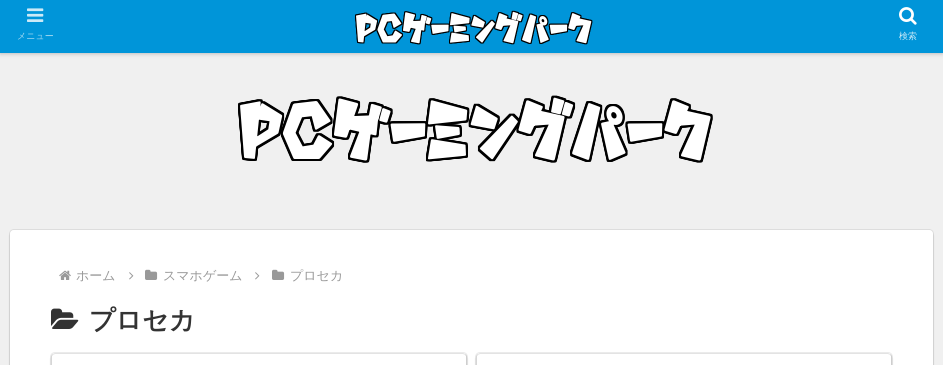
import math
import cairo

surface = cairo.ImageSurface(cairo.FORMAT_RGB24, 943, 365)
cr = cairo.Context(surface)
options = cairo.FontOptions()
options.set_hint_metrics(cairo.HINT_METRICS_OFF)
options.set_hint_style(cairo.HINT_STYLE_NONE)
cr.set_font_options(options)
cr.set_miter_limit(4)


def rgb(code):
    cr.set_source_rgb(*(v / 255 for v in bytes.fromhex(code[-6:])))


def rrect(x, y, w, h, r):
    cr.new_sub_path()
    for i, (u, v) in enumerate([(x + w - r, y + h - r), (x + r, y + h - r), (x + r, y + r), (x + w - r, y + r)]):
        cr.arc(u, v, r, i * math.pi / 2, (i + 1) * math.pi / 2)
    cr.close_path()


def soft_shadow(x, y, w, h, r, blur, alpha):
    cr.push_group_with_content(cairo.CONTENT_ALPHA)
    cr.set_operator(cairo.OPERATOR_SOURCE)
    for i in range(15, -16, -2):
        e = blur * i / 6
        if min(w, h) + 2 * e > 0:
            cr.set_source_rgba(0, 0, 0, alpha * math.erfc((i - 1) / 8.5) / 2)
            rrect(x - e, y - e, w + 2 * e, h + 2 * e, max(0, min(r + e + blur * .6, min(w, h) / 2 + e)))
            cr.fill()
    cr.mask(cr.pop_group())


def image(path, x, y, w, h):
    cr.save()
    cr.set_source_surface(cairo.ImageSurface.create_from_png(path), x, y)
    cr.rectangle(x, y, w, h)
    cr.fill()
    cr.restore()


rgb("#f0f0f0")
cr.paint()
rgb("#a9a9a9")
soft_shadow(0, 0, 943, 53, 0, 2.5, 1)
rgb("#0095d9")
cr.rectangle(0, 0, 943, 53)
cr.fill()
image("img/1.png", 27, 8, 17, 14)
image("img/2.png", 355, 10, 238, 35)
image("img/3.png", 899, 7, 18, 18)
image("img/4.png", 238, 95, 475, 68)
rrect(9.5, 229.5, 924, 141, 4.5)
rgb("#dddddd")
cr.set_line_width(1)
cr.stroke()
rgb("#000000")
soft_shadow(10, 232, 923, 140, 4, 1, 0.16)
rgb("#ffffff")
rrect(10, 230, 923, 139, 4)
cr.fill()
image("img/5.png", 59, 270, 12, 10)
image("img/6.png", 129, 272, 5, 8)
image("img/7.png", 145, 269, 13, 11)
image("img/6.png", 255, 272, 5, 8)
image("img/7.png", 272, 269, 13, 11)
image("img/8.png", 51, 308, 28, 21)
rrect(50.5, 352.5, 417, 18, 4.5)
rgb("#ebebeb")
cr.stroke()
cr.save()
cr.set_fill_rule(cairo.FILL_RULE_EVEN_ODD)
cr.new_path()
cr.move_to(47, 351)
cr.line_to(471, 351)
cr.line_to(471, 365)
cr.line_to(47, 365)
cr.close_path()
cr.move_to(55, 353)
cr.line_to(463, 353)
cr.curve_to(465, 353, 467, 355, 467, 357)
cr.line_to(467, 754)
cr.curve_to(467, 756, 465, 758, 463, 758)
cr.line_to(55, 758)
cr.curve_to(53, 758, 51, 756, 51, 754)
cr.line_to(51, 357)
cr.curve_to(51, 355, 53, 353, 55, 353)
cr.close_path()
cr.clip()
rgb("#000000")
soft_shadow(51, 355, 416, 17, 4, 1, 0.16)
cr.restore()
cr.new_path()
cr.move_to(52.5, 354.5)
cr.line_to(55, 353.5)
cr.line_to(463, 353.5)
cr.line_to(465.5, 354.5)
rgb("#e3e3e3")
cr.stroke()
cr.new_path()
cr.move_to(465.5, 354.5)
cr.line_to(466.5, 356)
cr.line_to(466.5, 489.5)
cr.line_to(466.5, 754)
cr.line_to(465.5, 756.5)
rgb("#cecece")
cr.stroke()
cr.new_path()
cr.move_to(52.5, 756.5)
cr.line_to(51.5, 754)
cr.line_to(51.5, 356)
cr.line_to(52.5, 354.5)
rgb("#d6d6d6")
cr.stroke()
rrect(475.5, 352.5, 417, 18, 4.5)
rgb("#ebebeb")
cr.stroke()
cr.save()
cr.set_fill_rule(cairo.FILL_RULE_EVEN_ODD)
cr.new_path()
cr.move_to(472, 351)
cr.line_to(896, 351)
cr.line_to(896, 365)
cr.line_to(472, 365)
cr.close_path()
cr.move_to(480, 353)
cr.line_to(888, 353)
cr.curve_to(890, 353, 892, 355, 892, 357)
cr.line_to(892, 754)
cr.curve_to(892, 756, 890, 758, 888, 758)
cr.line_to(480, 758)
cr.curve_to(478, 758, 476, 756, 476, 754)
cr.line_to(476, 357)
cr.curve_to(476, 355, 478, 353, 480, 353)
cr.close_path()
cr.clip()
rgb("#000000")
soft_shadow(476, 355, 416, 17, 4, 1, 0.16)
cr.restore()
cr.new_path()
cr.move_to(477.5, 354.5)
cr.line_to(480, 353.5)
cr.line_to(888, 353.5)
cr.line_to(890.5, 354.5)
rgb("#e3e3e3")
cr.stroke()
cr.new_path()
cr.move_to(890.5, 354.5)
cr.line_to(891.5, 356)
cr.line_to(891.5, 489.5)
cr.line_to(891.5, 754)
cr.line_to(890.5, 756.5)
rgb("#cecece")
cr.stroke()
cr.new_path()
cr.move_to(477.5, 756.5)
cr.line_to(476.5, 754)
cr.line_to(476.5, 356)
cr.line_to(477.5, 354.5)
rgb("#d6d6d6")
cr.stroke()
cr.select_font_face("WenQuanYi Zen Hei Medium")
cr.set_font_size(9)
rgb("#a3d9f1")
cr.move_to(17, 39)
cr.show_text("メニュー")
rgb("#cceaf7")
cr.move_to(899, 39)
cr.show_text("検索")
cr.set_font_size(13)
rgb("#999999")
for x, y, s in [
    (76, 280, "ホーム"),
    (163, 280, "スマホゲーム"),
    (290, 280, "プロセカ"),
]:
    cr.move_to(x, y)
    cr.show_text(s)
cr.select_font_face("WenQuanYi Zen Hei", cairo.FONT_SLANT_NORMAL, cairo.FONT_WEIGHT_BOLD)
cr.set_font_size(26)
rgb("#333333")
cr.move_to(89, 329)
cr.show_text("プロセカ")
surface.write_to_png("page.png")
